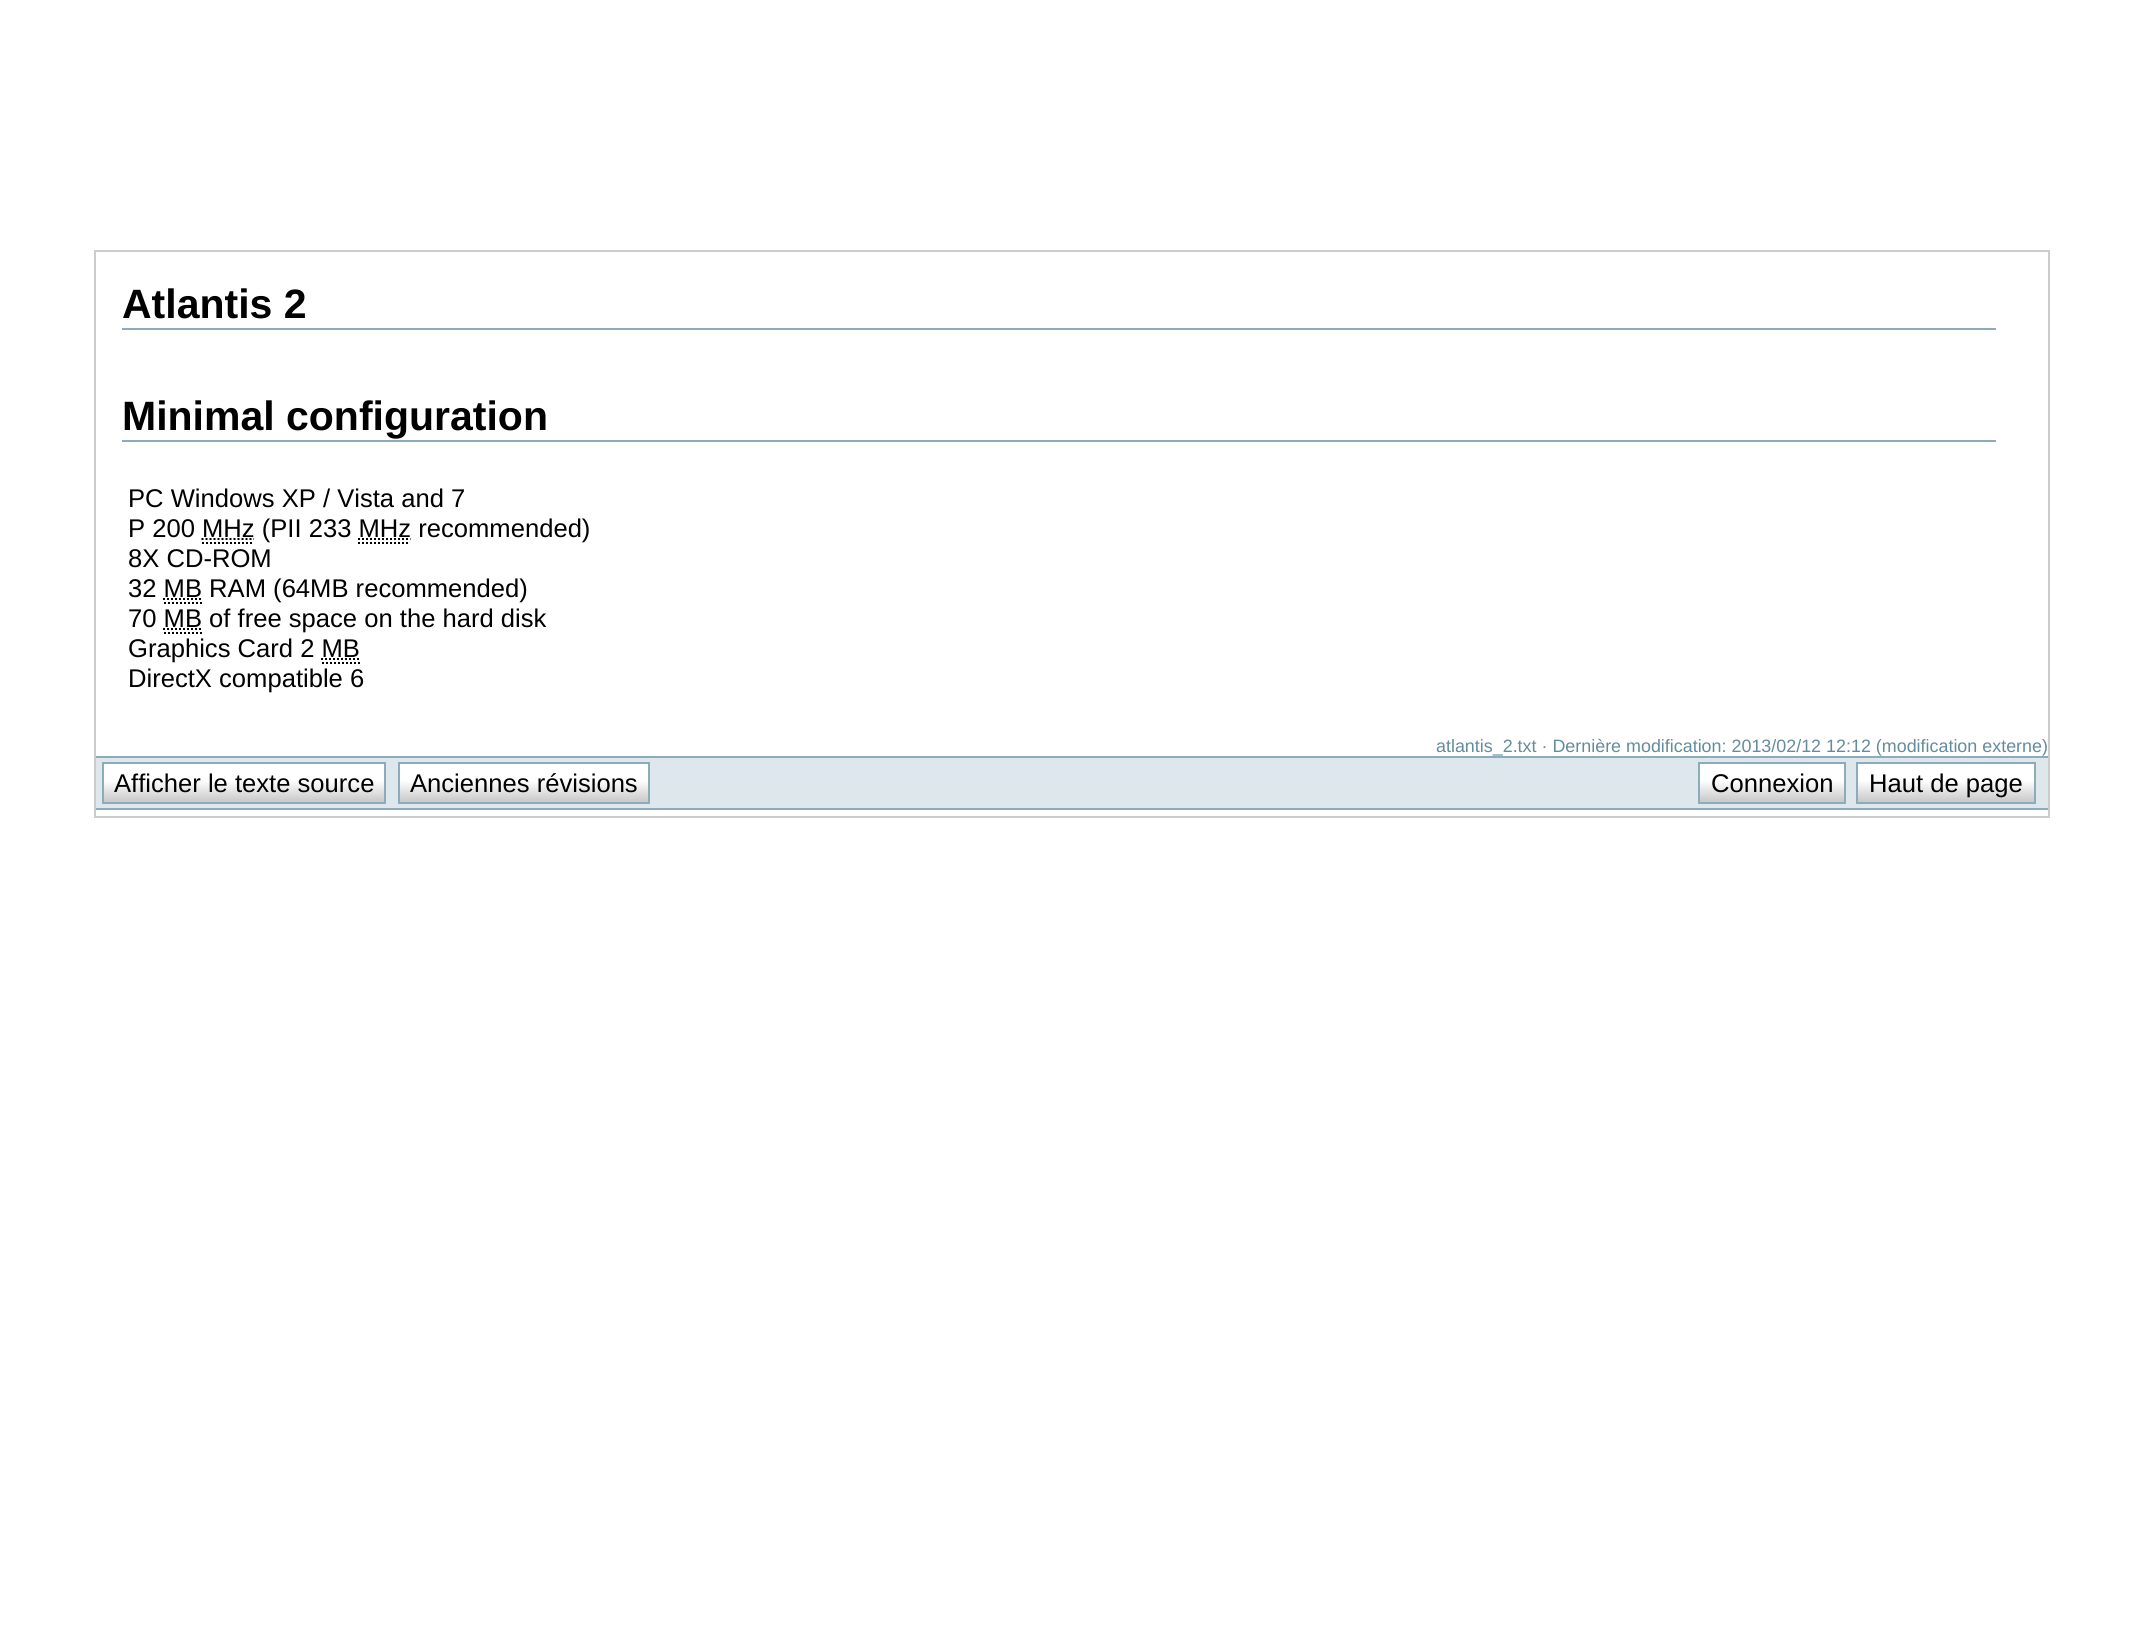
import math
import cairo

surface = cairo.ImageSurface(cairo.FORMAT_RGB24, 2143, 1637)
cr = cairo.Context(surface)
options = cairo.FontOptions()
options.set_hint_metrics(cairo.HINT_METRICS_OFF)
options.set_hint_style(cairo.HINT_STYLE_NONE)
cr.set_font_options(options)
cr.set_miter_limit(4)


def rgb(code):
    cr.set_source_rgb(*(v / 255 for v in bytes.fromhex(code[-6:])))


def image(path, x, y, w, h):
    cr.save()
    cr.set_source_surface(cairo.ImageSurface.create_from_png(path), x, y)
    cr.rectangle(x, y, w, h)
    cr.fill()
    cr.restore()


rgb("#ffffff")
cr.paint()
cr.rectangle(95, 251, 1954, 566)
rgb("#cccccc")
cr.stroke()
rgb("#8cacbb")
cr.rectangle(122, 328, 1874, 2)
cr.fill()
cr.rectangle(122, 440, 1874, 2)
cr.fill()
cr.new_path()
cr.move_to(202, 543)
cr.line_to(254, 543)
cr.move_to(201.5, 539)
cr.line_to(254, 539)
rgb("#000000")
cr.set_dash([2, 2])
cr.stroke()
cr.new_path()
cr.move_to(358, 543)
cr.line_to(410, 543)
cr.move_to(358, 539)
cr.line_to(410.5, 539)
cr.stroke()
cr.new_path()
cr.move_to(164, 603)
cr.line_to(202, 603)
cr.move_to(163, 599)
cr.line_to(201.5, 599)
cr.stroke()
cr.new_path()
cr.move_to(164, 633)
cr.line_to(202, 633)
cr.move_to(163, 629)
cr.line_to(201.5, 629)
cr.stroke()
cr.new_path()
cr.move_to(322, 663)
cr.line_to(360, 663)
cr.move_to(321, 659)
cr.line_to(359.5, 659)
cr.stroke()
for x, y, w, h, color in [
    (96, 758, 1952, 50, "#dee7ec"),
    (96, 756, 1952, 2, "#8cacbb"),
    (96, 808, 1952, 2, "#8cacbb"),
    (104, 764, 280, 37, "#ffffff"),
]:
    rgb(color)
    cr.rectangle(x, y, w, h)
    cr.fill()
image("img/1.png", 104, 781, 280, 21)
cr.rectangle(103, 763, 282, 40)
rgb("#8cacbb")
cr.set_dash([])
cr.stroke()
rgb("#ffffff")
cr.rectangle(400, 764, 248, 37)
cr.fill()
image("img/2.png", 400, 781, 248, 21)
cr.rectangle(399, 763, 250, 40)
rgb("#8cacbb")
cr.stroke()
rgb("#ffffff")
cr.rectangle(1700, 764, 144, 37)
cr.fill()
image("img/3.png", 1700, 781, 144, 21)
cr.rectangle(1699, 763, 146, 40)
rgb("#8cacbb")
cr.stroke()
rgb("#ffffff")
cr.rectangle(1858, 764, 176, 37)
cr.fill()
image("img/4.png", 1858, 781, 176, 21)
cr.rectangle(1857, 763, 178, 40)
rgb("#8cacbb")
cr.stroke()
cr.select_font_face("Liberation Sans", cairo.FONT_SLANT_NORMAL, cairo.FONT_WEIGHT_BOLD)
cr.set_font_size(41)
rgb("#000000")
cr.move_to(122, 318)
cr.show_text("Atlantis 2")
cr.move_to(122, 430)
cr.show_text("Minimal configuration")
cr.select_font_face("Liberation Sans")
cr.set_font_size(25.6)
for x, y, s in [
    (128, 507, "PC Windows XP / Vista and 7"),
    (128, 537, "P 200 MHz (PII 233 MHz recommended)"),
    (128, 567, "8X CD-ROM"),
    (128, 597, "32 MB RAM (64MB recommended)"),
    (128, 627, "70 MB of free space on the hard disk"),
    (128, 657, "Graphics Card 2 MB"),
    (128, 687, "DirectX compatible 6"),
]:
    cr.move_to(x, y)
    cr.show_text(s)
cr.set_font_size(17.9)
rgb("#638c9c")
cr.move_to(1436, 752)
cr.show_text("atlantis_2.txt · Dernière modification: 2013/02/12 12:12 (modification externe)")
cr.set_font_size(25.6)
rgb("#000000")
for x, y, s in [
    (114, 792, "Afficher le texte source"),
    (410, 792, "Anciennes révisions"),
    (1711, 792, "Connexion"),
    (1869, 792, "Haut de page"),
]:
    cr.move_to(x, y)
    cr.show_text(s)
surface.write_to_png("page.png")
